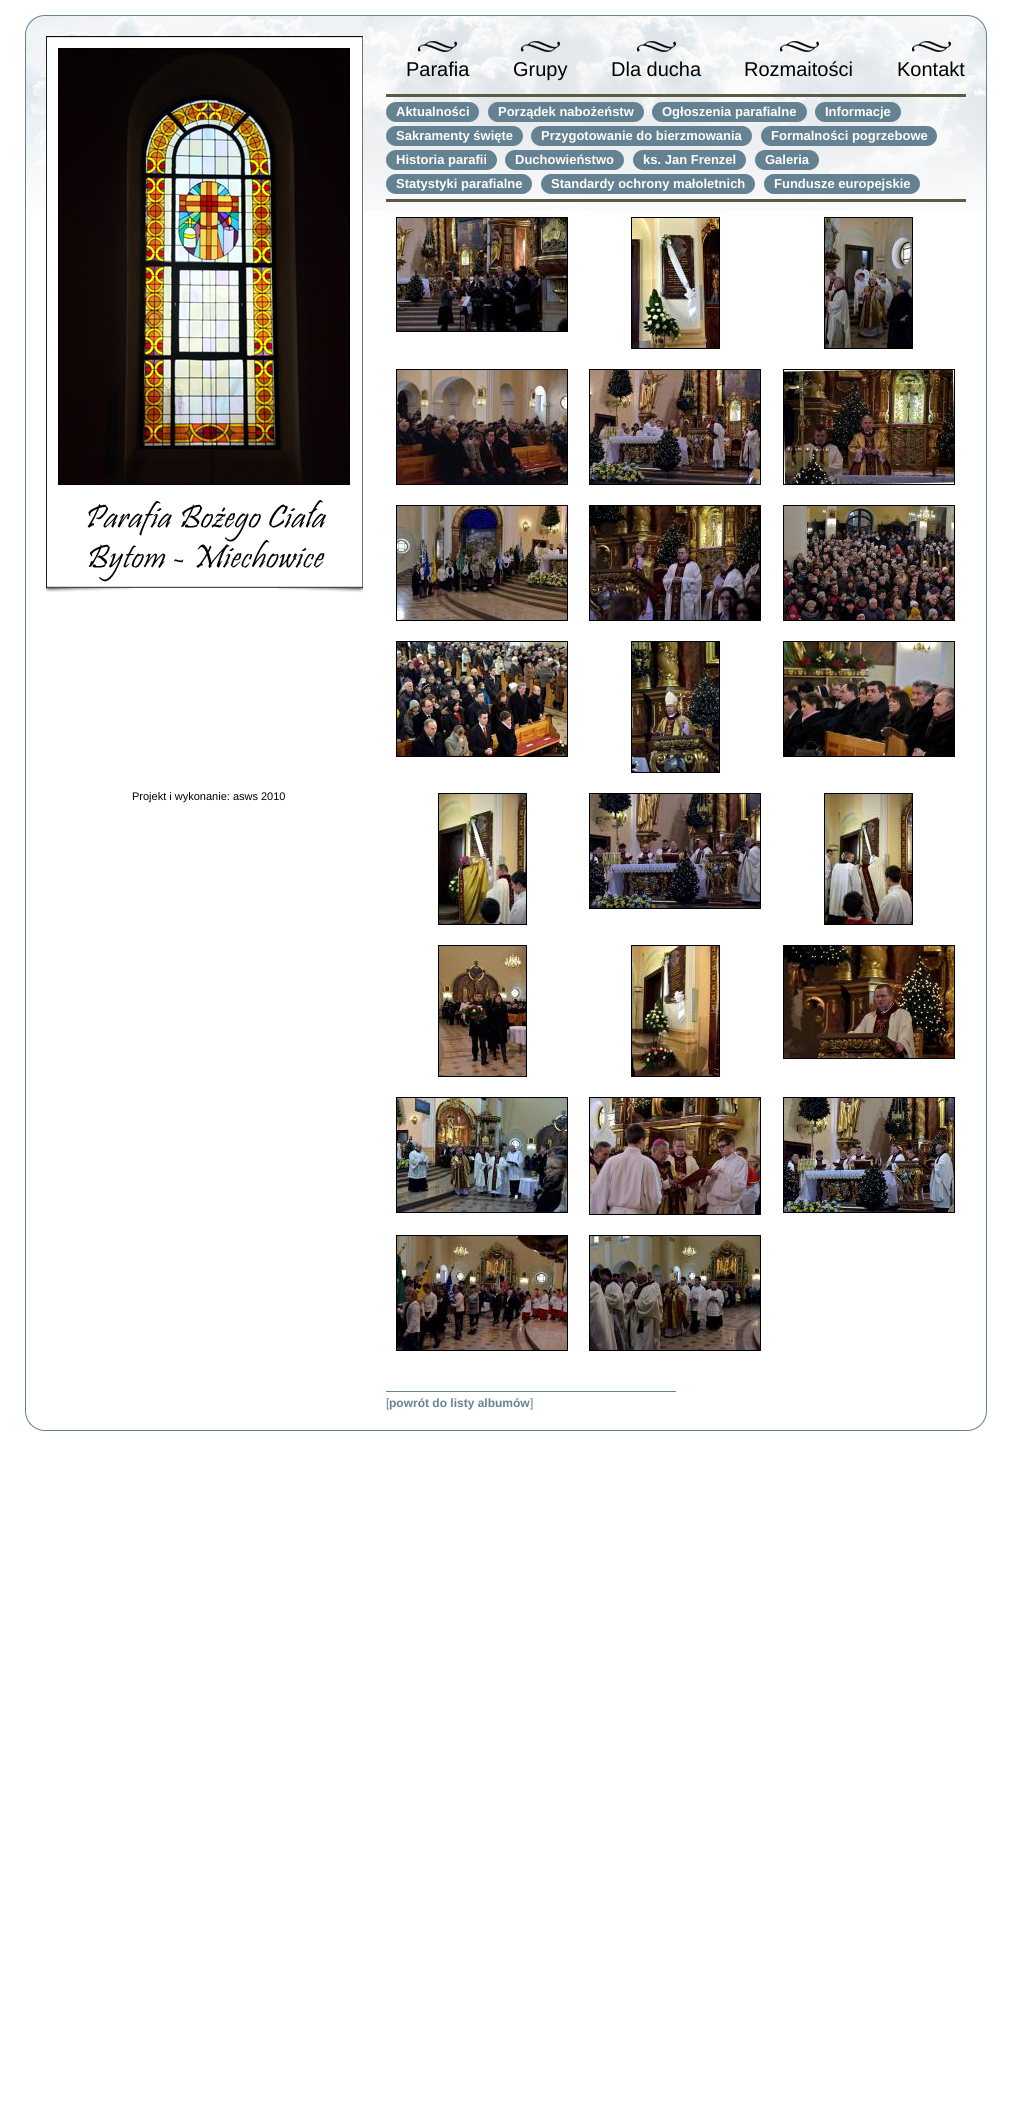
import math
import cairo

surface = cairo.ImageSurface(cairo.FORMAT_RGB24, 1011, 2121)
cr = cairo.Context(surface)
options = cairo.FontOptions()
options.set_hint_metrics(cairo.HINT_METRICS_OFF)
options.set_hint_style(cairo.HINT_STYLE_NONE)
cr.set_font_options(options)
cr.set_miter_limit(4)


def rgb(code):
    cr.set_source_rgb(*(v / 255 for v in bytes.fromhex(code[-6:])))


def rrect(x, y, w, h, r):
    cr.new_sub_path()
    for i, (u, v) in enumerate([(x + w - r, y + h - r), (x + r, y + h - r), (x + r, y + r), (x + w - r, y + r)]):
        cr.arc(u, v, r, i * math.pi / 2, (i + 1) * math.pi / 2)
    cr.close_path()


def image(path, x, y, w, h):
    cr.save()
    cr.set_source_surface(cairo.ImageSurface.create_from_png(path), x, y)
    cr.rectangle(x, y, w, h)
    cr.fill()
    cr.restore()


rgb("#ffffff")
cr.paint()
image("img/1.png", 26, 16, 960, 195)
rrect(25.5, 15.5, 961, 1415, 19.5)
rgb("#658293")
cr.set_line_width(1)
cr.stroke()
rgb("#ffffff")
cr.rectangle(46, 38, 317, 173)
cr.fill()
image("img/2.png", 46, 36, 317, 557)
cr.rectangle(58.5, 48.5, 291, 436)
rgb("#000000")
cr.stroke()
image("img/3.png", 59, 49, 290, 435)
image("img/4.png", 418, 41, 39, 11)
image("img/5.png", 521, 41, 39, 11)
image("img/6.png", 637, 41, 39, 11)
image("img/7.png", 780, 41, 39, 11)
image("img/8.png", 912, 41, 39, 11)
rgb("#5b5b44")
cr.rectangle(386, 94, 580, 3)
cr.fill()
rgb("#658293")
rrect(386, 102, 93, 20, 10)
cr.fill()
rrect(488, 102, 156, 20, 10)
cr.fill()
rrect(652, 102, 155, 20, 10)
cr.fill()
rrect(815, 102, 86, 20, 10)
cr.fill()
rrect(386, 126, 137, 20, 10)
cr.fill()
rrect(531, 126, 221, 20, 10)
cr.fill()
rrect(761, 126, 176, 20, 10)
cr.fill()
rrect(386, 150, 111, 20, 10)
cr.fill()
rrect(505, 150, 119, 20, 10)
cr.fill()
rrect(633, 150, 113, 20, 10)
cr.fill()
rrect(755, 150, 64, 20, 10)
cr.fill()
rrect(386, 174, 146, 20, 10)
cr.fill()
rrect(541, 174, 214, 20, 10)
cr.fill()
rrect(764, 174, 156, 20, 10)
cr.fill()
rgb("#5b5b44")
cr.rectangle(386, 199, 580, 3)
cr.fill()
cr.rectangle(396.5, 217.5, 171, 114)
rgb("#000000")
cr.stroke()
image("img/9.png", 397, 218, 170, 113)
cr.rectangle(631.5, 217.5, 88, 131)
cr.stroke()
image("img/10.png", 632, 218, 87, 130)
cr.rectangle(824.5, 217.5, 88, 131)
cr.stroke()
image("img/11.png", 825, 218, 87, 130)
cr.rectangle(396.5, 369.5, 171, 115)
cr.stroke()
image("img/12.png", 397, 370, 170, 114)
cr.rectangle(589.5, 369.5, 171, 115)
cr.stroke()
image("img/13.png", 590, 370, 170, 114)
cr.rectangle(783.5, 369.5, 171, 115)
cr.stroke()
image("img/14.png", 784, 370, 170, 114)
cr.rectangle(396.5, 505.5, 171, 115)
cr.stroke()
image("img/15.png", 397, 506, 170, 114)
cr.rectangle(589.5, 505.5, 171, 115)
cr.stroke()
image("img/16.png", 590, 506, 170, 114)
cr.rectangle(783.5, 505.5, 171, 115)
cr.stroke()
image("img/17.png", 784, 506, 170, 114)
cr.rectangle(396.5, 641.5, 171, 115)
cr.stroke()
image("img/18.png", 397, 642, 170, 114)
cr.rectangle(631.5, 641.5, 88, 131)
cr.stroke()
image("img/19.png", 632, 642, 87, 130)
cr.rectangle(783.5, 641.5, 171, 115)
cr.stroke()
image("img/20.png", 784, 642, 170, 114)
cr.rectangle(438.5, 793.5, 88, 131)
cr.stroke()
image("img/21.png", 439, 794, 87, 130)
cr.rectangle(589.5, 793.5, 171, 115)
cr.stroke()
image("img/22.png", 590, 794, 170, 114)
cr.rectangle(824.5, 793.5, 88, 131)
cr.stroke()
image("img/23.png", 825, 794, 87, 130)
cr.rectangle(438.5, 945.5, 88, 131)
cr.stroke()
image("img/24.png", 439, 946, 87, 130)
cr.rectangle(631.5, 945.5, 88, 131)
cr.stroke()
image("img/25.png", 632, 946, 87, 130)
cr.rectangle(783.5, 945.5, 171, 113)
cr.stroke()
image("img/26.png", 784, 946, 170, 112)
cr.rectangle(396.5, 1097.5, 171, 115)
cr.stroke()
image("img/27.png", 397, 1098, 170, 114)
cr.rectangle(589.5, 1097.5, 171, 117)
cr.stroke()
image("img/28.png", 590, 1098, 170, 116)
cr.rectangle(783.5, 1097.5, 171, 115)
cr.stroke()
image("img/29.png", 784, 1098, 170, 114)
cr.rectangle(396.5, 1235.5, 171, 115)
cr.stroke()
image("img/30.png", 397, 1236, 170, 114)
cr.rectangle(589.5, 1235.5, 171, 115)
cr.stroke()
image("img/31.png", 590, 1236, 170, 114)
rgb("#658293")
cr.rectangle(386, 1391, 290, 1)
cr.fill()
cr.select_font_face("Liberation Sans")
cr.set_font_size(11)
rgb("#000000")
cr.move_to(132, 800)
cr.show_text("Projekt i wykonanie: asws 2010")
cr.set_font_size(20)
for x, y, s in [
    (406, 76, "Parafia"),
    (513, 76, "Grupy"),
    (611, 76, "Dla ducha"),
    (744, 76, "Rozmaitości"),
    (897, 76, "Kontakt"),
]:
    cr.move_to(x, y)
    cr.show_text(s)
cr.select_font_face("Liberation Sans", cairo.FONT_SLANT_NORMAL, cairo.FONT_WEIGHT_BOLD)
cr.set_font_size(13)
rgb("#ffffff")
for x, y, s in [
    (396, 116, "Aktualności"),
    (498, 116, "Porządek nabożeństw"),
    (662, 116, "Ogłoszenia parafialne"),
    (825, 116, "Informacje"),
    (396, 140, "Sakramenty święte"),
    (541, 140, "Przygotowanie do bierzmowania"),
    (771, 140, "Formalności pogrzebowe"),
    (396, 164, "Historia parafii"),
    (515, 164, "Duchowieństwo"),
    (643, 164, "ks. Jan Frenzel"),
    (765, 164, "Galeria"),
    (396, 188, "Statystyki parafialne"),
    (551, 188, "Standardy ochrony małoletnich"),
    (774, 188, "Fundusze europejskie"),
]:
    cr.move_to(x, y)
    cr.show_text(s)
cr.select_font_face("Liberation Sans")
cr.set_font_size(12)
rgb("#658293")
cr.move_to(386, 1407)
cr.show_text("[")
cr.select_font_face("Liberation Sans", cairo.FONT_SLANT_NORMAL, cairo.FONT_WEIGHT_BOLD)
cr.move_to(389, 1407)
cr.show_text("powrót do listy albumów")
cr.select_font_face("Liberation Sans")
cr.move_to(530, 1407)
cr.show_text("]")
surface.write_to_png("page.png")
